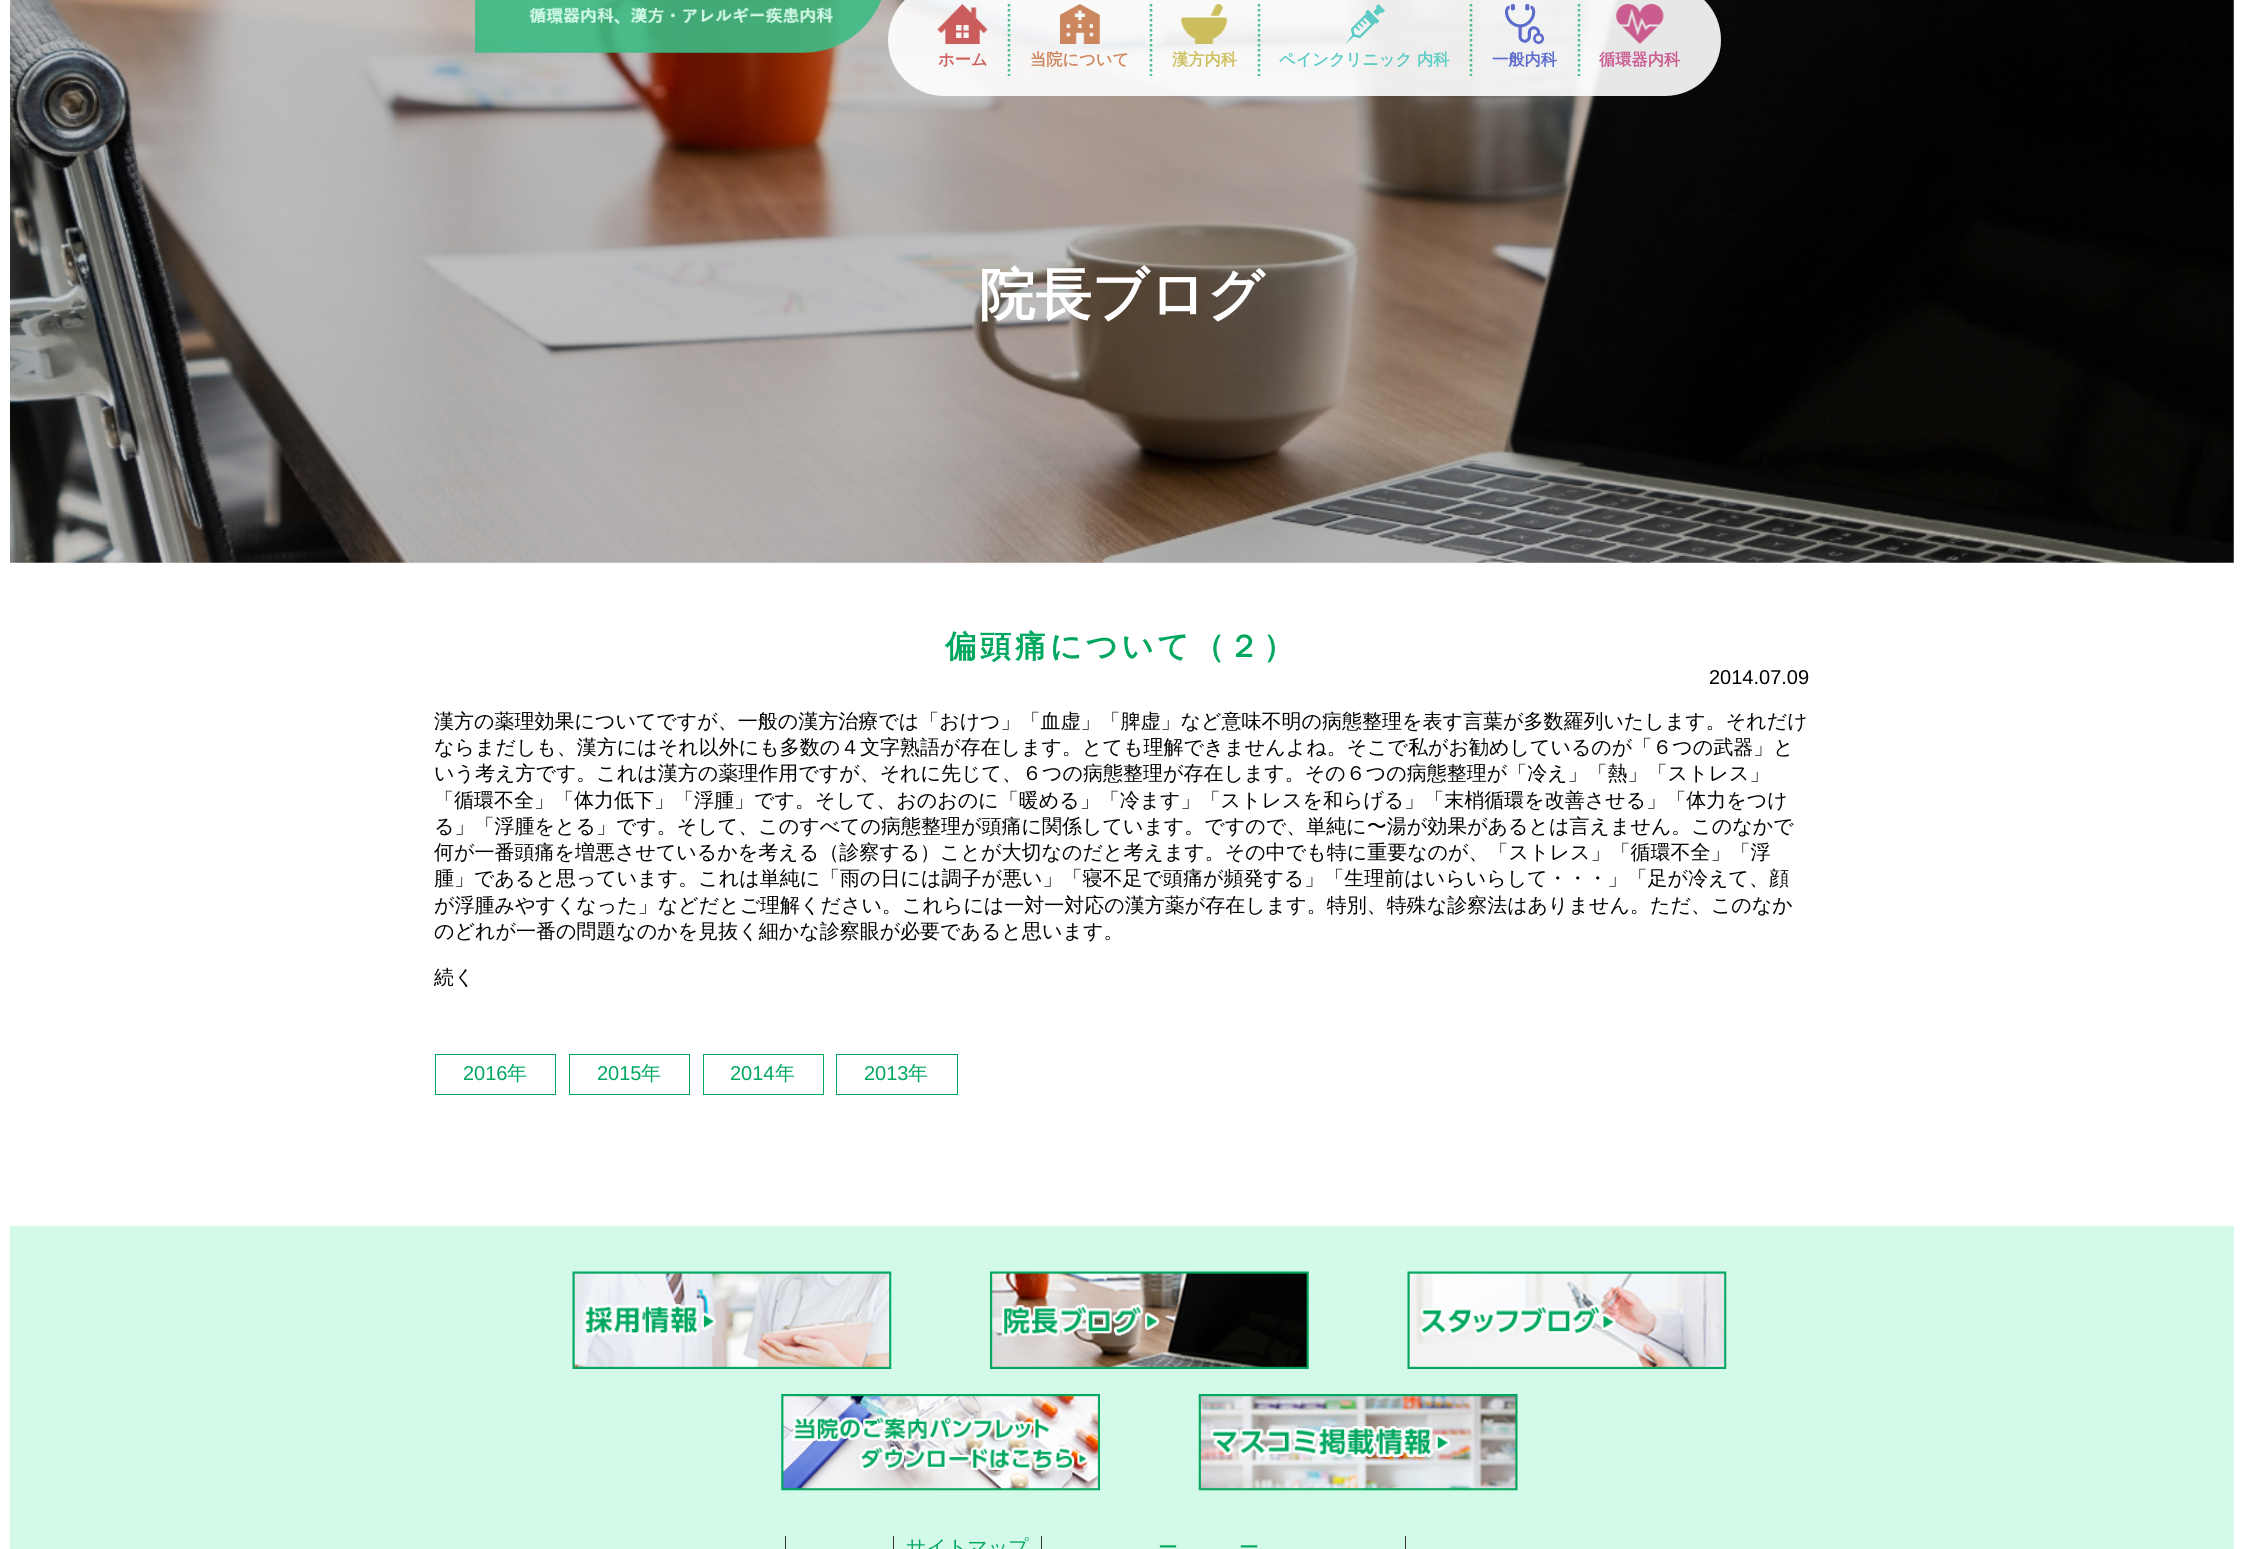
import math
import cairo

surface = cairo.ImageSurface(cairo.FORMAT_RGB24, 2243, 1549)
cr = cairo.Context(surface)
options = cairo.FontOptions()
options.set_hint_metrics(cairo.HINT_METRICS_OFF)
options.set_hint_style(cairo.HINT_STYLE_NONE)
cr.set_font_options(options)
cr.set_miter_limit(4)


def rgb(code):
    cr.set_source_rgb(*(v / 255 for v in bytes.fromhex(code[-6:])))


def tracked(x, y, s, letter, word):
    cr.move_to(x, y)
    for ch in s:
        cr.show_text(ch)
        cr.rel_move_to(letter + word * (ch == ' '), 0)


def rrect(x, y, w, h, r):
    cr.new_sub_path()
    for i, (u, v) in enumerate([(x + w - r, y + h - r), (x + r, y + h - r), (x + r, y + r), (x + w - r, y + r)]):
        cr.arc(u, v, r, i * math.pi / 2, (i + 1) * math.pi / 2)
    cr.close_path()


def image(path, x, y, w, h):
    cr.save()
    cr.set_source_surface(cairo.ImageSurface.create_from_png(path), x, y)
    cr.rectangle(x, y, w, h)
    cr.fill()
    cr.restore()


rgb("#ffffff")
cr.paint()
image("img/1.png", 10, 0, 2224, 563)
image("img/2.png", 475, 0, 407, 53)
cr.set_source_rgba(1, 1, 1, 0.9)
rrect(888, -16, 833, 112, 56)
cr.fill()
cr.new_path()
cr.move_to(1009, 4)
cr.line_to(1009, 76)
cr.set_source_rgba(0.239, 0.733, 0.518, 0.9)
cr.set_line_width(2.5)
cr.set_dash([2.5, 2.5])
cr.stroke()
image("img/3.png", 937, 4, 51, 40)
cr.new_path()
cr.move_to(1151, 4)
cr.line_to(1151, 76)
cr.stroke()
image("img/4.png", 1060, 4, 40, 40)
cr.new_path()
cr.move_to(1259, 4)
cr.line_to(1259, 76)
cr.stroke()
image("img/5.png", 1181, 4, 47, 40)
cr.new_path()
cr.move_to(1471, 4)
cr.line_to(1471, 76)
rgb("#4fc08f")
cr.stroke()
image("img/6.png", 1345, 4, 40, 40)
cr.new_path()
cr.move_to(1579, 4)
cr.line_to(1579, 76)
cr.set_source_rgba(0.239, 0.733, 0.518, 0.9)
cr.stroke()
image("img/7.png", 1505, 4, 39, 40)
image("img/8.png", 1616, 4, 48, 40)
cr.rectangle(435.5, 1054.5, 120, 40)
rgb("#00a75e")
cr.set_line_width(1)
cr.set_dash([])
cr.stroke()
cr.rectangle(569.5, 1054.5, 120, 40)
cr.stroke()
cr.rectangle(703.5, 1054.5, 120, 40)
cr.stroke()
cr.rectangle(836.5, 1054.5, 121, 40)
cr.stroke()
rgb("#d3f9e8")
cr.rectangle(10, 1226, 2224, 323)
cr.fill()
image("img/9.png", 572, 1271, 320, 98)
image("img/10.png", 990, 1271, 319, 98)
image("img/11.png", 1407, 1271, 320, 98)
image("img/12.png", 781, 1394, 319, 97)
image("img/13.png", 1198, 1394, 320, 97)
for x, y, w, h, color in [
    (785, 1536, 1, 13, "#333333"),
    (893, 1536, 1, 13, "#333333"),
    (1041, 1536, 1, 13, "#333333"),
    (1405, 1536, 1, 13, "#333333"),
]:
    rgb(color)
    cr.rectangle(x, y, w, h)
    cr.fill()
cr.select_font_face("WenQuanYi Zen Hei", cairo.FONT_SLANT_NORMAL, cairo.FONT_WEIGHT_BOLD)
cr.set_font_size(16.25)
rgb("#cd5e5e")
cr.move_to(938, 65)
cr.show_text("ホーム")
rgb("#cd875e")
cr.move_to(1030, 65)
cr.show_text("当院について")
rgb("#cdbe5e")
cr.move_to(1172, 65)
cr.show_text("漢方内科")
rgb("#5dccc5")
cr.move_to(1279, 65)
cr.show_text("ペインクリニック 内科")
rgb("#5d6ccc")
cr.move_to(1492, 65)
cr.show_text("一般内科")
rgb("#cb5c90")
cr.move_to(1599, 65)
cr.show_text("循環器内科")
cr.set_font_size(56.25)
rgb("#ffffff")
cr.move_to(979, 314)
cr.show_text("院長ブログ")
cr.set_font_size(31.25)
rgb("#00a75e")
tracked(945, 657, "偏頭痛について（２）", 3.75, 0)
cr.select_font_face("Liberation Sans")
cr.set_font_size(20)
rgb("#000000")
cr.move_to(1709, 684)
cr.show_text("2014.07.09")
cr.select_font_face("WenQuanYi Zen Hei Medium")
for x, y, s in [
    (434, 728, "漢方の薬理効果についてですが、一般の漢方治療では「おけつ」「血虚」「脾虚」など意味不明の病態整理を表す言葉が多数羅列いたします。それだけ"),
    (434, 754, "ならまだしも、漢方にはそれ以外にも多数の４文字熟語が存在します。とても理解できませんよね。そこで私がお勧めしているのが「６つの武器」と"),
    (434, 780, "いう考え方です。これは漢方の薬理作用ですが、それに先じて、６つの病態整理が存在します。その６つの病態整理が「冷え」「熱」「ストレス」"),
    (434, 807, "「循環不全」「体力低下」「浮腫」です。そして、おのおのに「暖める」「冷ます」「ストレスを和らげる」「末梢循環を改善させる」「体力をつけ"),
    (434, 833, "る」「浮腫をとる」です。そして、このすべての病態整理が頭痛に関係しています。ですので、単純に〜湯が効果があるとは言えません。このなかで"),
    (434, 859, "何が一番頭痛を増悪させているかを考える（診察する）ことが大切なのだと考えます。その中でも特に重要なのが、「ストレス」「循環不全」「浮"),
    (434, 885, "腫」であると思っています。これは単純に「雨の日には調子が悪い」「寝不足で頭痛が頻発する」「生理前はいらいらして・・・」「足が冷えて、顔"),
    (434, 912, "が浮腫みやすくなった」などだとご理解ください。これらには一対一対応の漢方薬が存在します。特別、特殊な診察法はありません。ただ、このなか"),
    (434, 938, "のどれが一番の問題なのかを見抜く細かな診察眼が必要であると思います。"),
    (434, 984, "続く"),
]:
    cr.move_to(x, y)
    cr.show_text(s)
cr.select_font_face("Liberation Sans")
rgb("#00a75e")
cr.move_to(463, 1080)
cr.show_text("2016")
cr.select_font_face("WenQuanYi Zen Hei Medium")
cr.move_to(507, 1080)
cr.show_text("年")
cr.select_font_face("Liberation Sans")
cr.move_to(597, 1080)
cr.show_text("2015")
cr.select_font_face("WenQuanYi Zen Hei Medium")
cr.move_to(641, 1080)
cr.show_text("年")
cr.select_font_face("Liberation Sans")
cr.move_to(730, 1080)
cr.show_text("2014")
cr.select_font_face("WenQuanYi Zen Hei Medium")
cr.move_to(775, 1080)
cr.show_text("年")
cr.select_font_face("Liberation Sans")
cr.move_to(864, 1080)
cr.show_text("2013")
cr.select_font_face("WenQuanYi Zen Hei Medium")
for x, y, s in [
    (908, 1080, "年"),
    (906, 1554, "サイトマップ"),
    (1158, 1554, "ー"),
    (1239, 1554, "ー"),
]:
    cr.move_to(x, y)
    cr.show_text(s)
surface.write_to_png("page.png")
